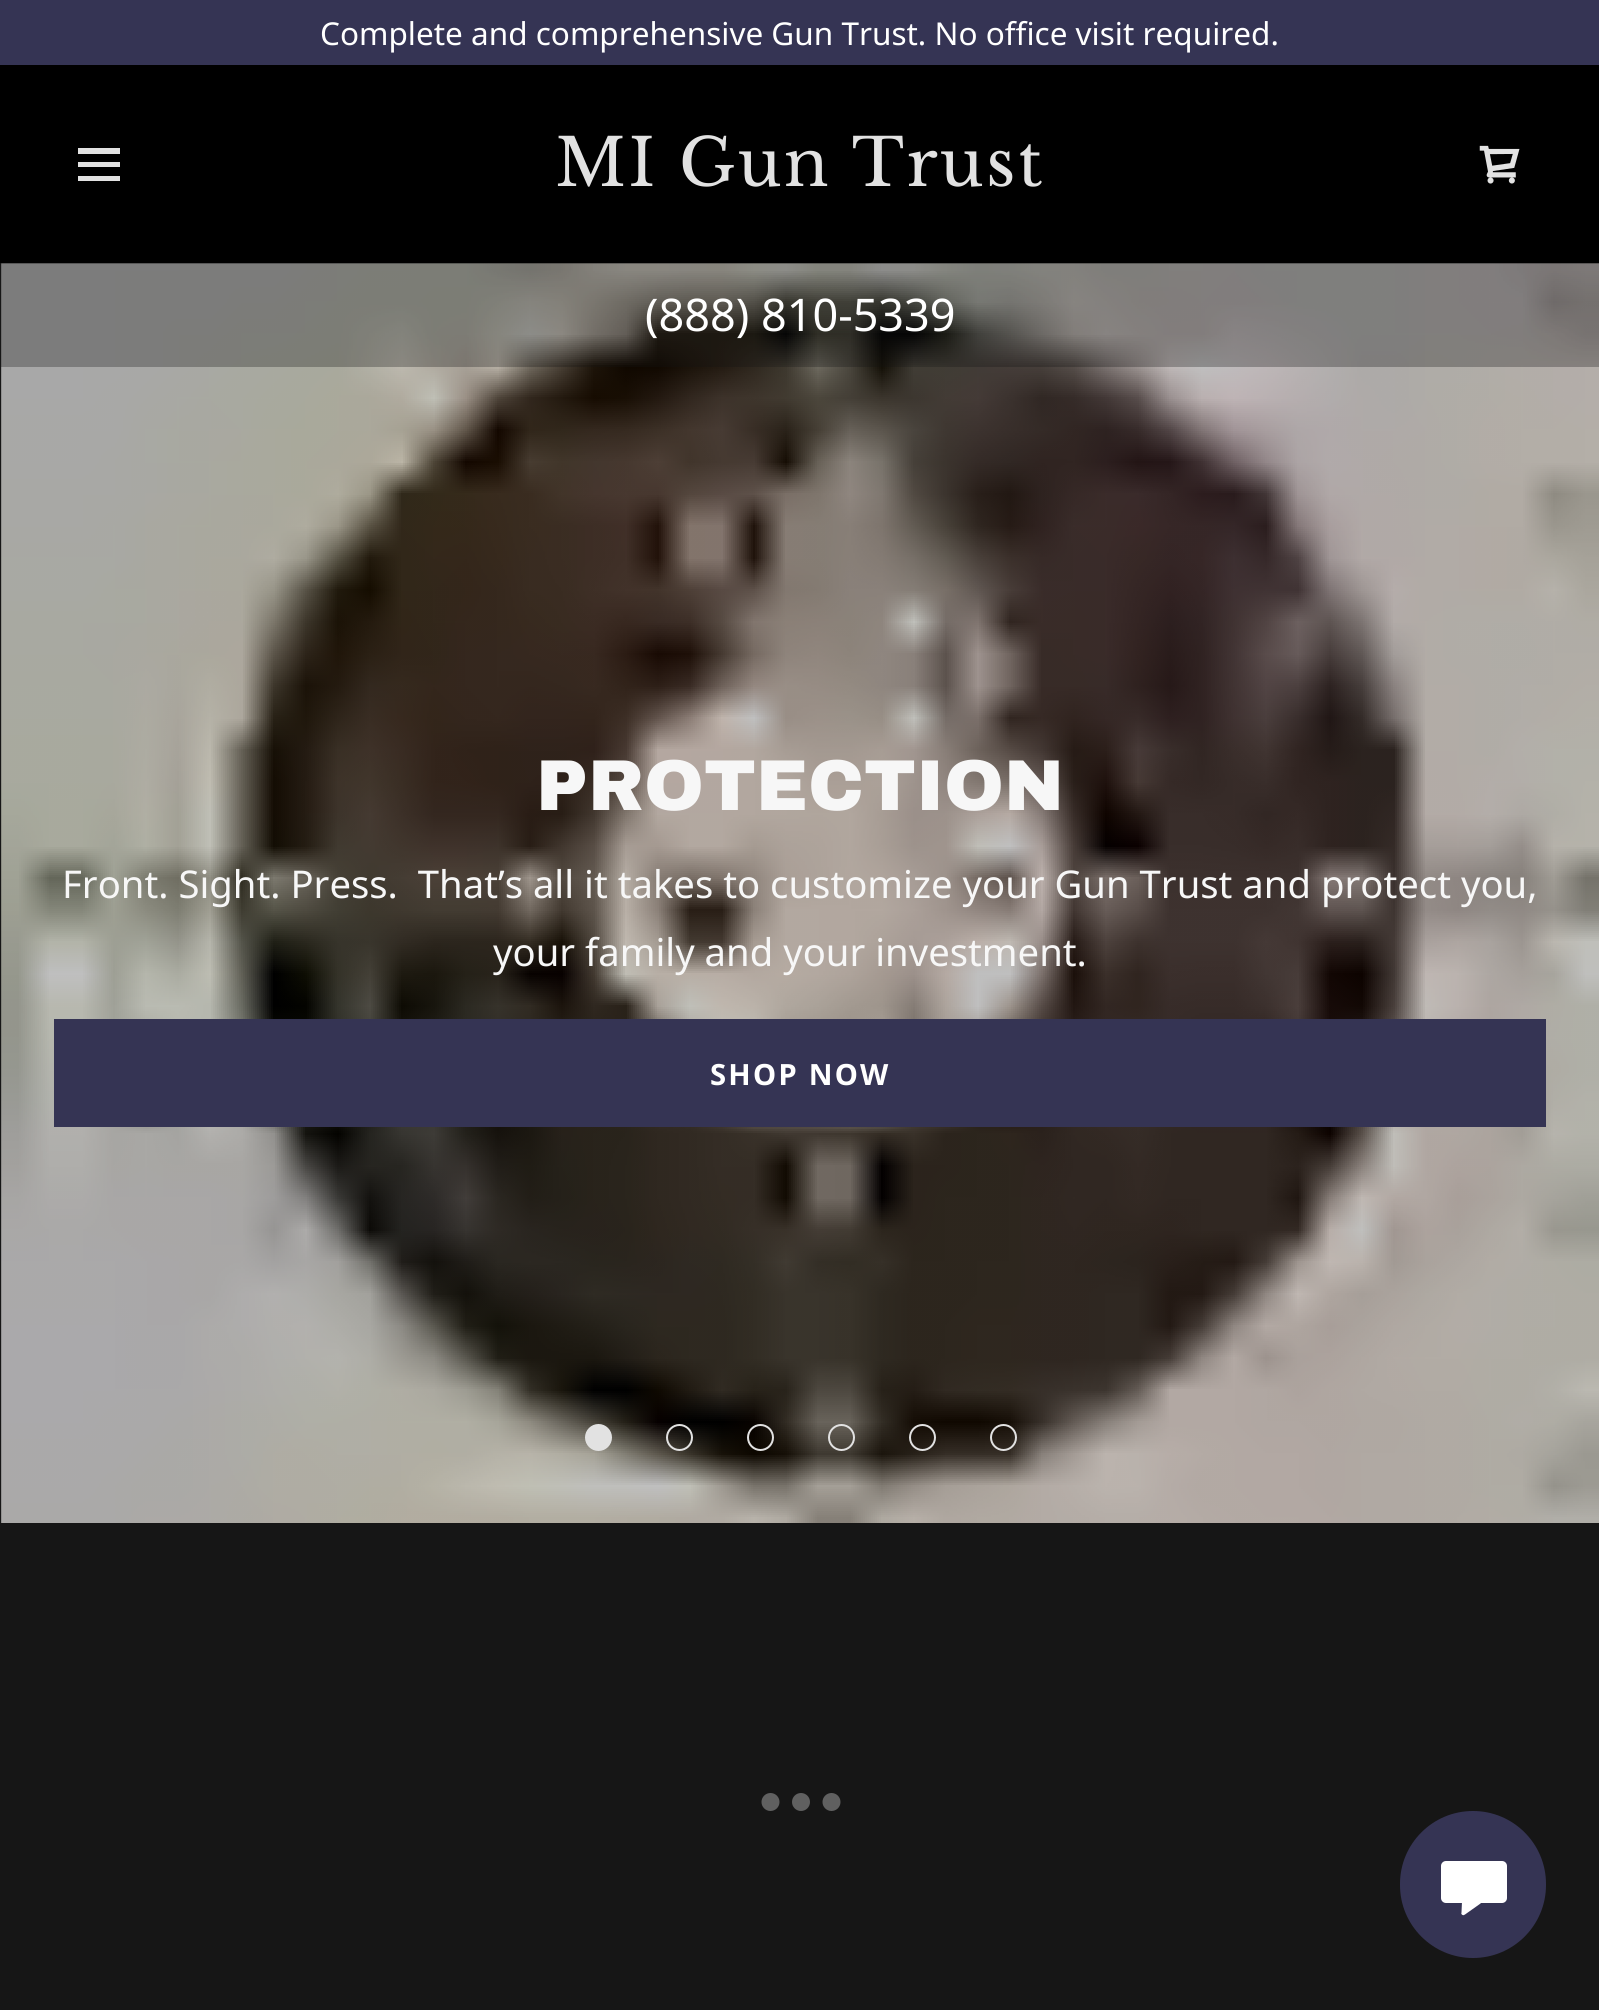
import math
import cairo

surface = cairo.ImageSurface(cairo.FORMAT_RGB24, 1599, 2010)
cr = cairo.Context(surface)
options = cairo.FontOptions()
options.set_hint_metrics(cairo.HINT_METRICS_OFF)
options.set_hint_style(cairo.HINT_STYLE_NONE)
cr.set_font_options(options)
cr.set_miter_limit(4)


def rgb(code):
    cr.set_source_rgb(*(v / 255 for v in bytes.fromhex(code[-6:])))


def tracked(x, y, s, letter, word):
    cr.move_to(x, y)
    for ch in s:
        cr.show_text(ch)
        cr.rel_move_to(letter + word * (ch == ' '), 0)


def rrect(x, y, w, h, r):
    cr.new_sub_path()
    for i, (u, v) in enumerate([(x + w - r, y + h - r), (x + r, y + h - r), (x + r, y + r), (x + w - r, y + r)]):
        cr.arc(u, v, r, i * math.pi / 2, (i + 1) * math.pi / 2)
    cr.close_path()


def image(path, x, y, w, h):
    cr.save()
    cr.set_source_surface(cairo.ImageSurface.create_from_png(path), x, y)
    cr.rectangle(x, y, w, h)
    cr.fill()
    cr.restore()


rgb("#161616")
cr.paint()
for x, y, w, h, color in [
    (0, 0, 1599, 65, "#353454"),
    (0, 65, 1599, 198, "#000000"),
    (78, 148, 42, 6, "#e2e2e2"),
    (78, 162, 42, 5, "#e2e2e2"),
    (78, 176, 42, 5, "#e2e2e2"),
]:
    rgb(color)
    cr.rectangle(x, y, w, h)
    cr.fill()
image("img/1.png", 1479, 145, 41, 39)
image("img/2.png", 1, 263, 1598, 1260)
cr.arc(598.5, 1437.5, 12.5, 0, 2 * math.pi)
cr.fill_preserve()
cr.stroke()
cr.arc(679.5, 1437.5, 12.5, 0, 2 * math.pi)
cr.stroke()
cr.arc(760.5, 1437.5, 12.5, 0, 2 * math.pi)
cr.stroke()
cr.arc(841.5, 1437.5, 12.5, 0, 2 * math.pi)
cr.stroke()
cr.arc(922.5, 1437.5, 12.5, 0, 2 * math.pi)
cr.stroke()
cr.arc(1003.5, 1437.5, 12.5, 0, 2 * math.pi)
cr.stroke()
cr.set_source_rgba(0.086, 0.086, 0.086, 0.3)
cr.rectangle(1, 263, 1598, 104)
cr.fill()
rgb("#353454")
cr.rectangle(54, 1019, 1492, 108)
cr.fill()
rgb("#606060")
cr.arc(770.5, 1802, 9, 0, 2 * math.pi)
cr.fill()
cr.arc(801, 1802, 9, 0, 2 * math.pi)
cr.fill()
cr.arc(831.5, 1802, 9, 0, 2 * math.pi)
cr.fill()
rgb("#353454")
rrect(1400, 1811, 146, 147, 73)
cr.fill()
rgb("#ffffff")
rrect(1441, 1861, 66, 42, 5)
cr.fill()
cr.new_path()
cr.move_to(1461.5, 1912.5)
cr.line_to(1462, 1901.5)
cr.curve_to(1462, 1900, 1463, 1899, 1464.5, 1899)
cr.line_to(1479.5, 1899)
cr.curve_to(1481.5, 1899, 1482.5, 1902, 1480.5, 1903.5)
cr.line_to(1465, 1914.5)
cr.curve_to(1464, 1915, 1463.5, 1915.5, 1462.5, 1915)
cr.curve_to(1461.5, 1914.5, 1461, 1913.5, 1461.5, 1912.5)
cr.close_path()
cr.fill()
cr.select_font_face("Noto Sans")
cr.set_font_size(31.5)
cr.move_to(320, 45)
cr.show_text("Complete and comprehensive Gun Trust. No office visit required.")
cr.select_font_face("Libre Baskerville")
cr.set_font_size(65.25)
rgb("#e2e2e2")
tracked(555, 186, "MI Gun Trust", 2.25, 0)
cr.select_font_face("Noto Sans")
cr.set_font_size(45)
rgb("#ffffff")
cr.move_to(645, 331)
cr.show_text("(888) 810-5339")
cr.select_font_face("Archivo Black Black")
cr.set_font_size(72)
rgb("#f7f7f7")
cr.move_to(536, 810)
cr.show_text("PROTECTION")
cr.select_font_face("Noto Sans")
cr.set_font_size(38.25)
cr.move_to(62, 898)
cr.show_text("Front. Sight. Press.  That’s all it takes to customize your Gun Trust and protect you,")
cr.move_to(493, 966)
cr.show_text("your family and your investment.")
cr.select_font_face("Noto Sans", cairo.FONT_SLANT_NORMAL, cairo.FONT_WEIGHT_BOLD)
cr.set_font_size(29.25)
rgb("#ffffff")
tracked(710, 1085, "SHOP NOW", 2.25, 0)
surface.write_to_png("page.png")
